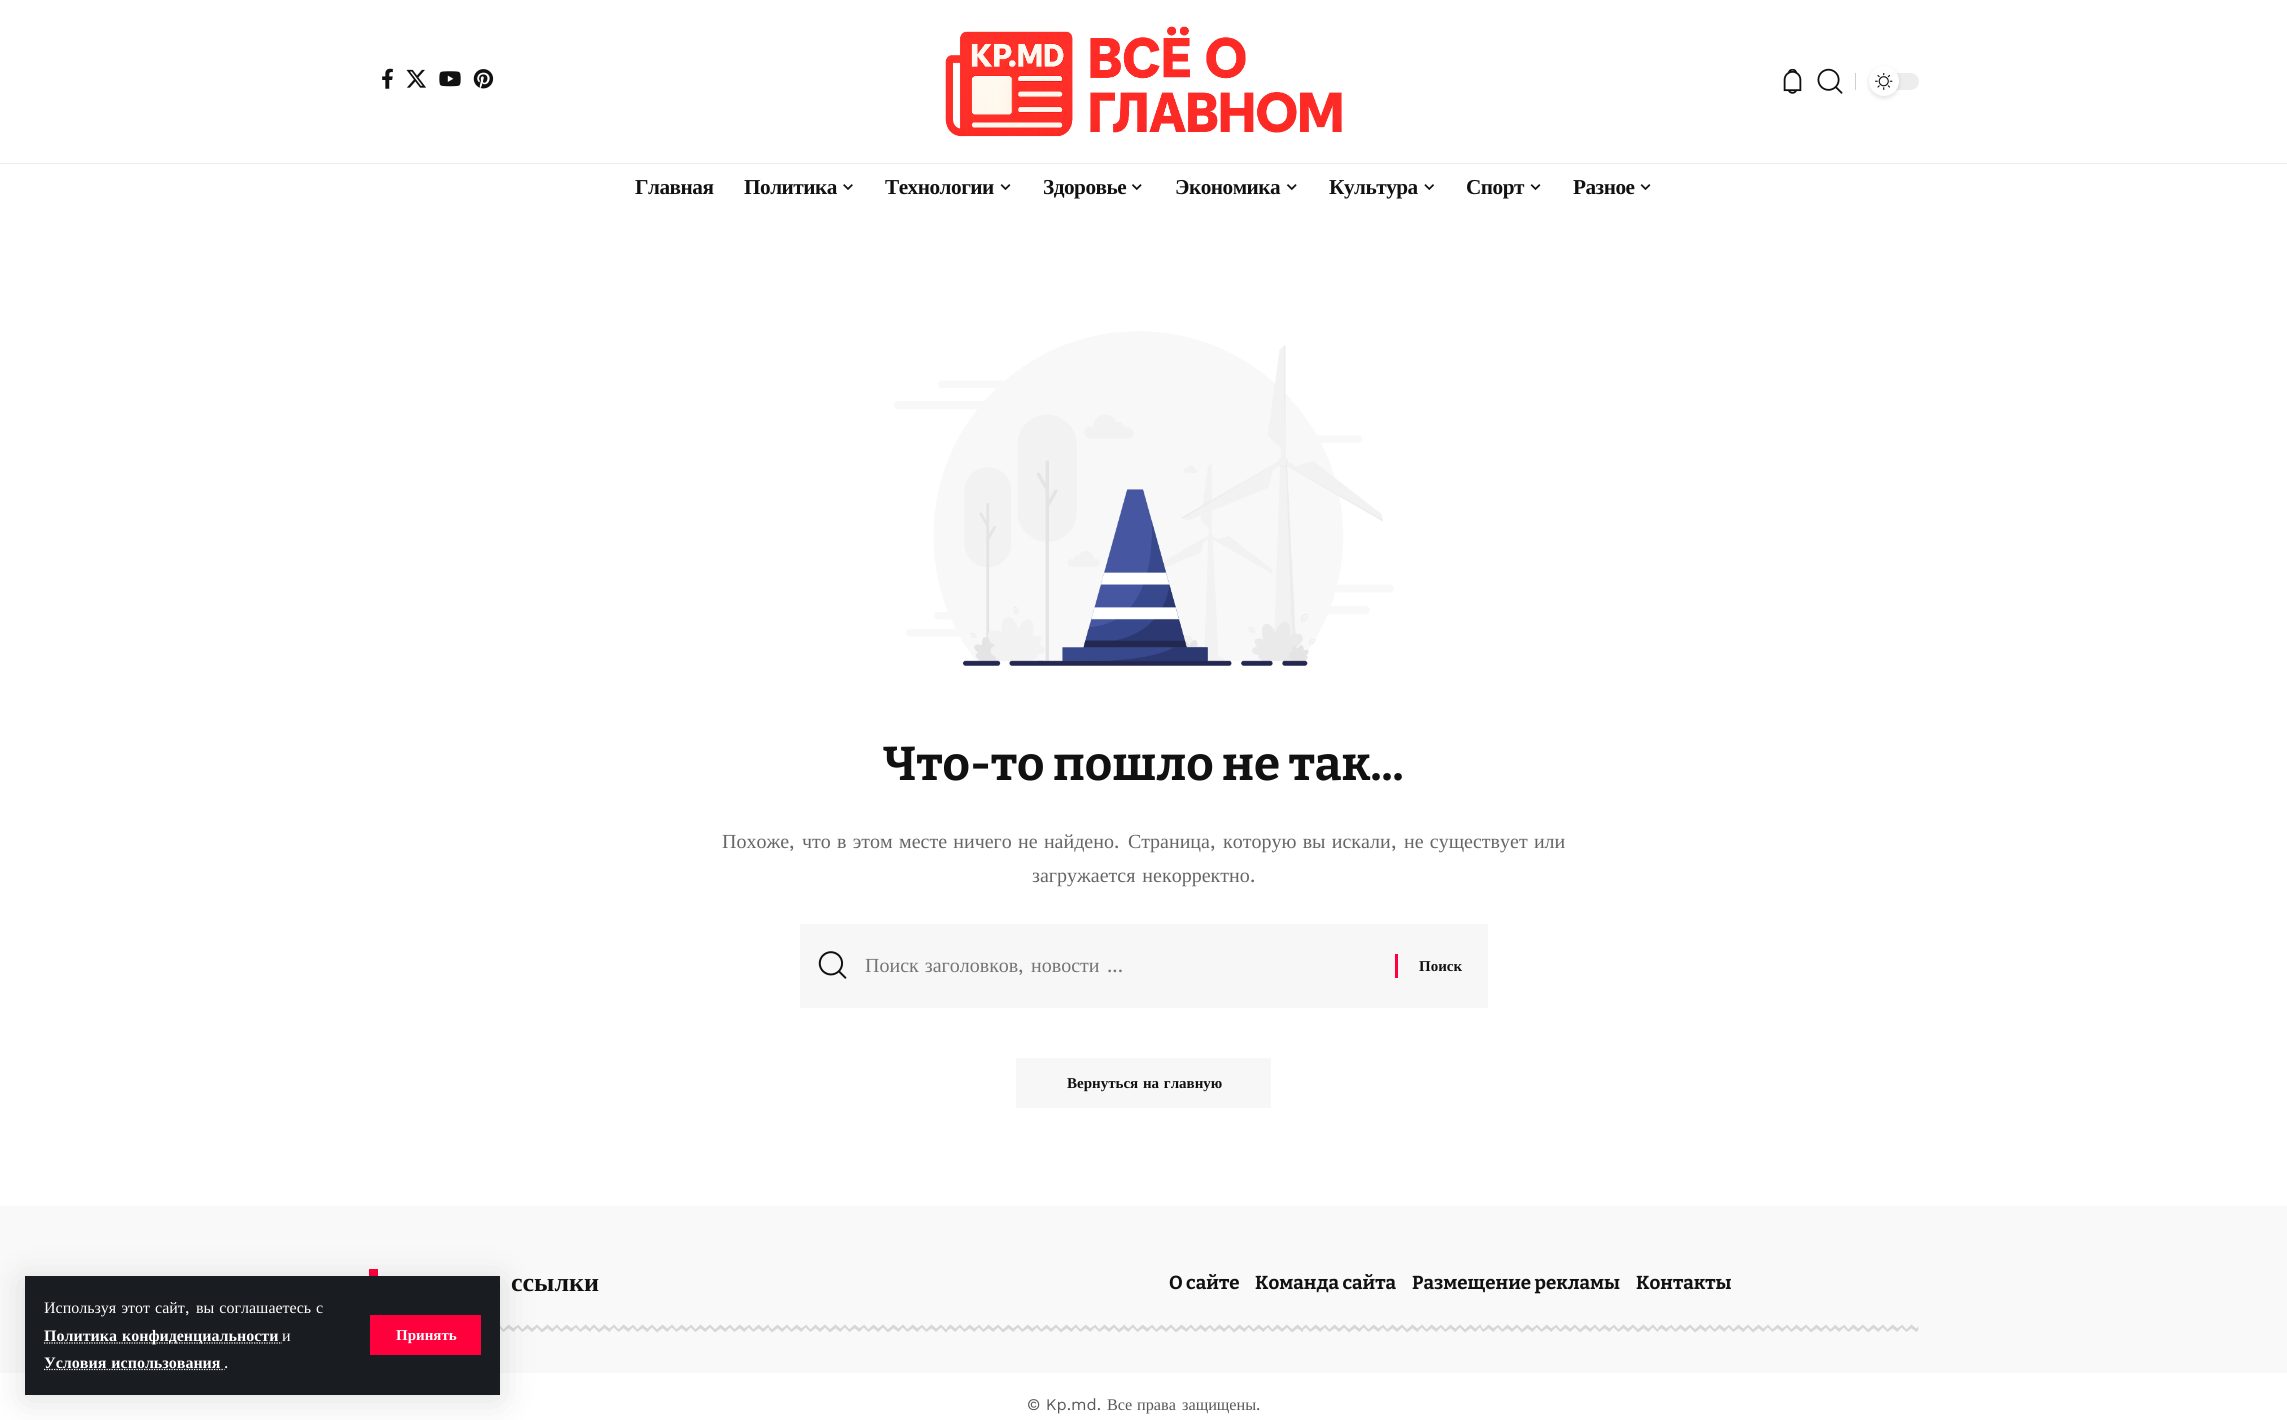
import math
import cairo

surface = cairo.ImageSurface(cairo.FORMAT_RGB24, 2287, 1420)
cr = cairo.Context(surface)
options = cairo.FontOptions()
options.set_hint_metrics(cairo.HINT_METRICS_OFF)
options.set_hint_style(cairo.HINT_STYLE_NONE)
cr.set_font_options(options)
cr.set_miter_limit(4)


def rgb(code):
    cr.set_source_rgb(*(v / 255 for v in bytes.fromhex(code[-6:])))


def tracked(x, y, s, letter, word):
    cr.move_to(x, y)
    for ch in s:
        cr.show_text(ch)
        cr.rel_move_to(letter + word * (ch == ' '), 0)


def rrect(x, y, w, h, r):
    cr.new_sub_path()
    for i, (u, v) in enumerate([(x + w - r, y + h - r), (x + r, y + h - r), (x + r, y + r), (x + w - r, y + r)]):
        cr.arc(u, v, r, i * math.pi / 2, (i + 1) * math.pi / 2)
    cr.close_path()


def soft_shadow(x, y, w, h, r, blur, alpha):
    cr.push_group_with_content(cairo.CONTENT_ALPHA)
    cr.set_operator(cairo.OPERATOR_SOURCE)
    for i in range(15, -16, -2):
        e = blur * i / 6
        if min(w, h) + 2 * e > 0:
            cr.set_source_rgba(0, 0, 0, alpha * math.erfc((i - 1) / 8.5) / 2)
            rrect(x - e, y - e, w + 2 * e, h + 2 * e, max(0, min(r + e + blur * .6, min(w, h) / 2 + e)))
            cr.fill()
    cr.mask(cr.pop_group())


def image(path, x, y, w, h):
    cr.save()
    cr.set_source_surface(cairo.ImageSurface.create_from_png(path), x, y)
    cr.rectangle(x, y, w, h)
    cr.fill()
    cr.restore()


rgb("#ffffff")
cr.paint()
image("img/1.png", 382, 68, 11, 21)
image("img/2.png", 406, 69, 20, 19)
image("img/3.png", 439, 71, 22, 16)
image("img/4.png", 473, 69, 21, 20)
image("img/5.png", 945, 26, 397, 111)
image("img/6.png", 1783, 69, 19, 25)
image("img/7.png", 1817, 68, 26, 26)
rgb("#cfcfcf")
cr.rectangle(1855, 73, 1, 17)
cr.fill()
rgb("#ededed")
rrect(1869, 73, 50, 17, 8.5)
cr.fill()
rgb("#000000")
soft_shadow(1869, 68, 30, 30, 15, 2.5, 0.12)
rgb("#ffffff")
cr.arc(1884, 81, 15, 0, 2 * math.pi)
cr.fill()
image("img/8.png", 1875, 73, 18, 17)
rgb("#ededed")
cr.rectangle(0, 163, 2287, 1)
cr.fill()
image("img/9.png", 843, 184, 10, 6)
image("img/10.png", 1000, 184, 11, 7)
image("img/11.png", 1131, 184, 11, 7)
image("img/11.png", 1286, 184, 11, 7)
image("img/12.png", 1424, 184, 11, 7)
image("img/10.png", 1530, 184, 11, 7)
image("img/10.png", 1640, 184, 11, 7)
rgb("#f9f9f9")
cr.rectangle(0, 1206, 2287, 167)
cr.fill()
rgb("#ff003c")
cr.rectangle(369, 1269, 9, 7)
cr.fill()
image("img/15.png", 500, 1324, 1419, 9)
rgb("#000000")
soft_shadow(25, 1281, 475, 119, 0, 19, 0.12)
rgb("#191c20")
cr.rectangle(25, 1276, 475, 119)
cr.fill()
cr.new_path()
cr.move_to(44, 1343)
cr.line_to(282, 1343)
rgb("#ffffff")
cr.set_line_width(1.2)
cr.set_dash([1.25, 1.25])
cr.stroke()
cr.new_path()
cr.move_to(44, 1369.5)
cr.line_to(224.5, 1369.5)
cr.stroke()
rgb("#ff003c")
cr.rectangle(370, 1315, 111, 40)
cr.fill()
image("img/13.png", 894, 331, 500, 335)
rgb("#f7f7f7")
cr.rectangle(800, 924, 688, 84)
cr.fill()
image("img/14.png", 818, 951, 29, 28)
rgb("#ff003c")
cr.rectangle(1395, 954, 3, 24)
cr.fill()
rgb("#f7f7f7")
cr.rectangle(1016, 1058, 255, 50)
cr.fill()
cr.select_font_face("Liberation Serif", cairo.FONT_SLANT_NORMAL, cairo.FONT_WEIGHT_BOLD)
cr.set_font_size(21.25)
rgb("#111111")
for x, y, s in [
    (635, 194, "Главная"),
    (744, 194, "Политика"),
    (885, 194, "Технологии"),
    (1043, 194, "Здоровье"),
    (1175, 194, "Экономика"),
    (1329, 194, "Культура"),
    (1466, 194, "Спорт"),
    (1573, 194, "Разное"),
]:
    tracked(x, y, s, -0.5, 0)
cr.select_font_face("Liberation Serif")
cr.set_font_size(16)
rgb("#ffffff")
tracked(44, 1313, "Используя этот сайт", 0, 1)
cr.select_font_face("Work Sans")
cr.move_to(185, 1313)
cr.show_text(",")
cr.select_font_face("Liberation Serif")
tracked(196, 1313, "вы соглашаетесь с", 0, 1)
cr.select_font_face("Liberation Serif", cairo.FONT_SLANT_NORMAL, cairo.FONT_WEIGHT_BOLD)
tracked(44, 1341, "Политика конфиденциальности", 0, 1)
cr.select_font_face("Liberation Serif")
cr.move_to(282, 1341)
cr.show_text("и")
cr.select_font_face("Liberation Serif", cairo.FONT_SLANT_NORMAL, cairo.FONT_WEIGHT_BOLD)
tracked(44, 1368, "Условия использования", 0, 1)
cr.select_font_face("Work Sans")
cr.move_to(224, 1368)
cr.show_text(".")
cr.select_font_face("Liberation Serif", cairo.FONT_SLANT_NORMAL, cairo.FONT_WEIGHT_BOLD)
cr.set_font_size(15)
cr.move_to(396, 1340)
cr.show_text("Принять")
cr.select_font_face("Bitter", cairo.FONT_SLANT_NORMAL, cairo.FONT_WEIGHT_BOLD)
cr.set_font_size(47.5)
rgb("#111111")
cr.move_to(883, 780)
cr.show_text("Что-то пошло не так...")
cr.select_font_face("Liberation Serif")
cr.set_font_size(20)
rgb("#666666")
cr.move_to(722, 848)
cr.show_text("Похоже")
cr.select_font_face("Work Sans")
cr.move_to(789, 848)
cr.show_text(",")
cr.select_font_face("Liberation Serif")
tracked(802, 848, "что в этом месте ничего не найдено", 0, 1.25)
cr.select_font_face("Work Sans")
cr.move_to(1114, 848)
cr.show_text(".")
cr.select_font_face("Liberation Serif")
cr.move_to(1128, 848)
cr.show_text("Страница")
cr.select_font_face("Work Sans")
cr.move_to(1210, 848)
cr.show_text(",")
cr.select_font_face("Liberation Serif")
tracked(1223, 848, "которую вы искали", 0, 1.25)
cr.select_font_face("Work Sans")
cr.move_to(1391, 848)
cr.show_text(",")
cr.select_font_face("Liberation Serif")
tracked(1404, 848, "не существует или", 0, 1.25)
tracked(1032, 882, "загружается некорректно", 0, 2)
cr.select_font_face("Work Sans")
cr.move_to(1250, 882)
cr.show_text(".")
cr.select_font_face("Liberation Serif")
rgb("#757575")
tracked(865, 972, "Поиск заголовков", 0, 1)
cr.select_font_face("Work Sans")
cr.move_to(1018, 972)
cr.show_text(",")
cr.select_font_face("Liberation Serif")
cr.move_to(1031, 972)
cr.show_text("новости")
cr.select_font_face("Work Sans")
cr.move_to(1107, 972)
cr.show_text("...")
cr.select_font_face("Liberation Serif", cairo.FONT_SLANT_NORMAL, cairo.FONT_WEIGHT_BOLD)
cr.set_font_size(15)
rgb("#111111")
cr.move_to(1419, 971)
cr.show_text("Поиск")
tracked(1067, 1088, "Вернуться на главную", 0, 1)
cr.set_font_size(26)
tracked(511, 1291, "ссылки", 0, 1)
cr.select_font_face("Bitter", cairo.FONT_SLANT_NORMAL, cairo.FONT_WEIGHT_BOLD)
cr.set_font_size(18.75)
for x, y, s in [
    (1169, 1289, "О сайте"),
    (1255, 1289, "Команда сайта"),
    (1412, 1289, "Размещение рекламы"),
    (1636, 1289, "Контакты"),
]:
    cr.move_to(x, y)
    cr.show_text(s)
cr.select_font_face("Work Sans")
cr.set_font_size(16.25)
rgb("#585858")
cr.move_to(1027, 1410)
cr.show_text("© Kp.md.")
cr.select_font_face("Liberation Serif")
for x, y, s in [
    (1107, 1410, "Все"),
    (1137, 1410, "права"),
    (1182, 1410, "защищены"),
]:
    cr.move_to(x, y)
    cr.show_text(s)
cr.select_font_face("Work Sans")
cr.move_to(1256, 1410)
cr.show_text(".")
surface.write_to_png("page.png")
